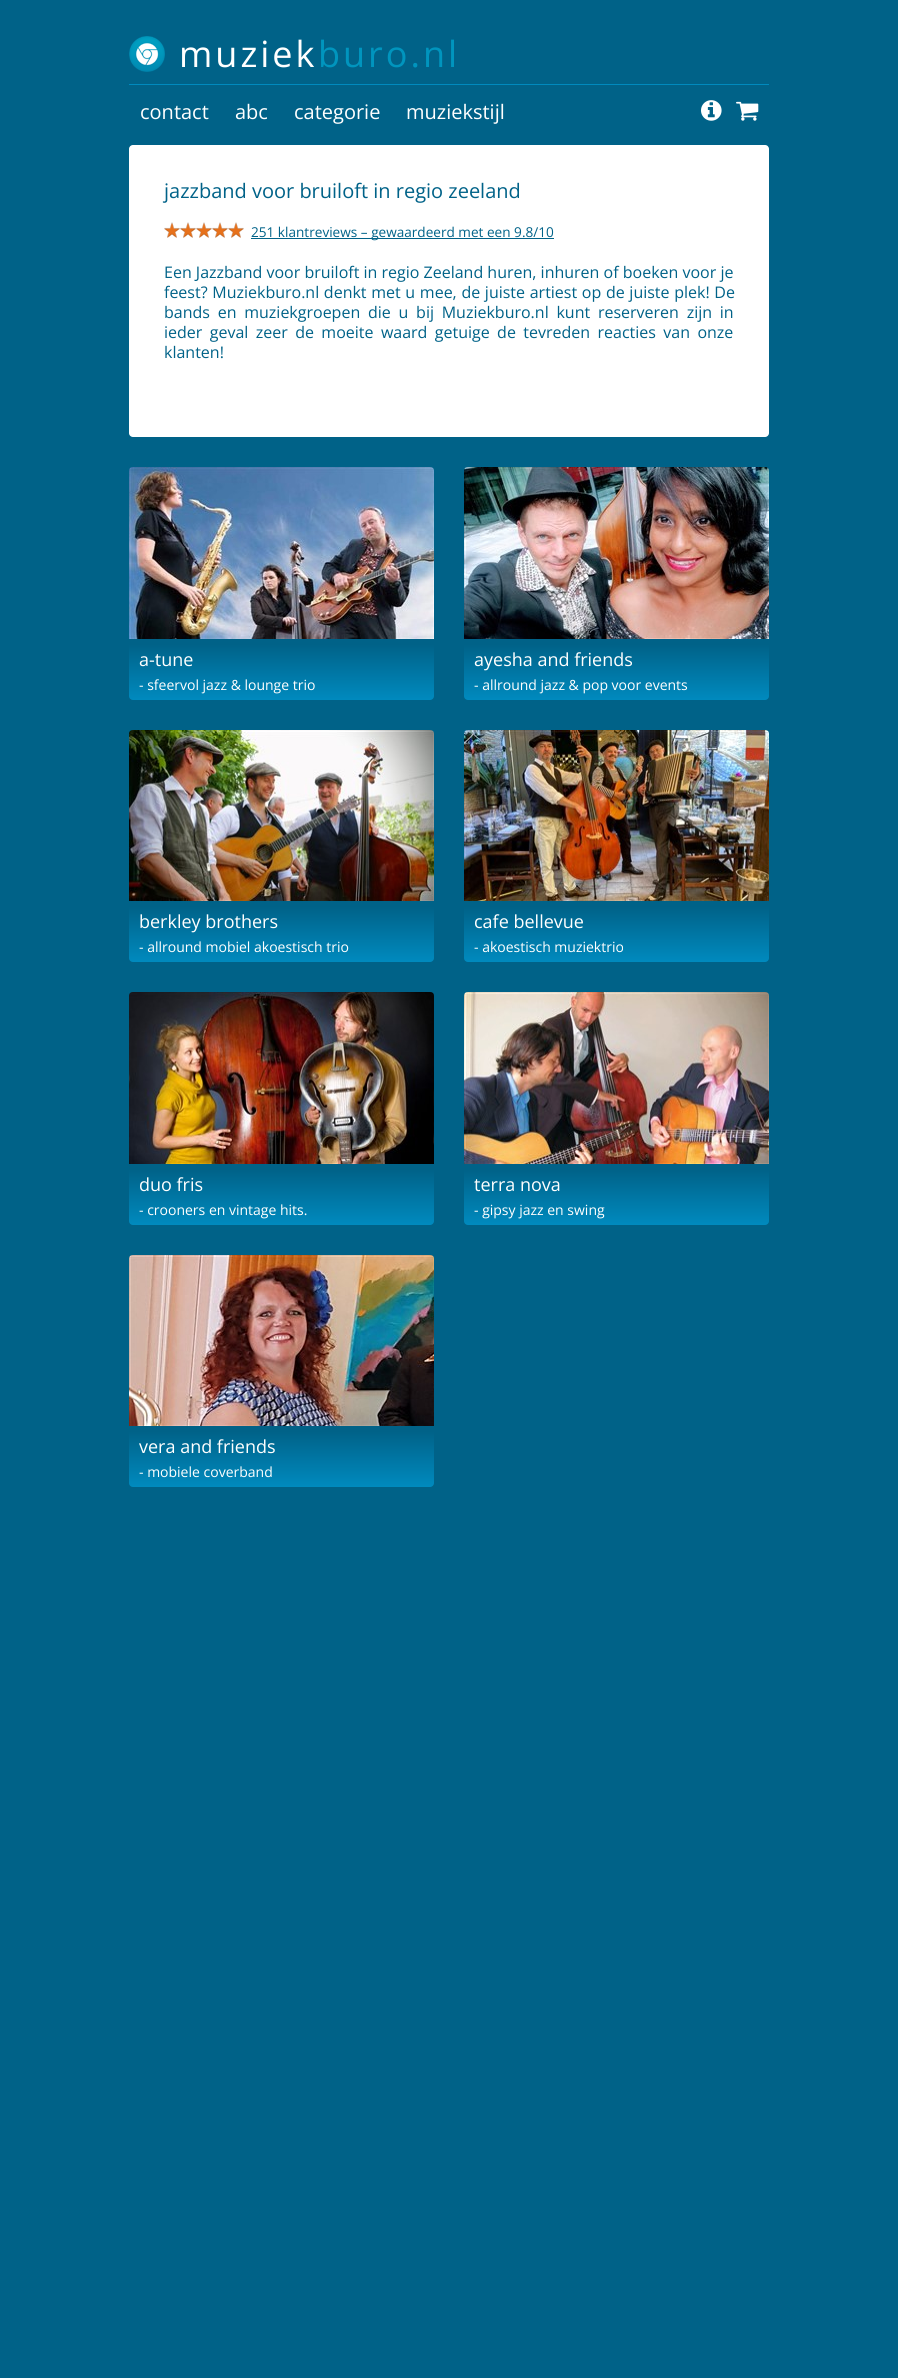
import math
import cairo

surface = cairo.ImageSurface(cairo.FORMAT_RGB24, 898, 2378)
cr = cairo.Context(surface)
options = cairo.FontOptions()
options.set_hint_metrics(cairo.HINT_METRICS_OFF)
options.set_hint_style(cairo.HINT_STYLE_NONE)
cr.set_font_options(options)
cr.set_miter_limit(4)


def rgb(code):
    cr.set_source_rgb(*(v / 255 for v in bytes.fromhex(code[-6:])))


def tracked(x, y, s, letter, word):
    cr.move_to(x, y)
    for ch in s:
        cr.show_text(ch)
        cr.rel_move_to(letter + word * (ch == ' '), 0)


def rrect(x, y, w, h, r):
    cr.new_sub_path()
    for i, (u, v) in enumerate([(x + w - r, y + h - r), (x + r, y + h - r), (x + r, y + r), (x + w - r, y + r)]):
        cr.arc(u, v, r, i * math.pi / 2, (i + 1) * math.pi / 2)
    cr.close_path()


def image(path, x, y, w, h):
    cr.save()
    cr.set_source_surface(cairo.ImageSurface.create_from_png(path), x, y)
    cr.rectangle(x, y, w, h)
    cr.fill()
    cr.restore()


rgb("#006288")
cr.paint()
rgb("#008abe")
cr.rectangle(129, 84, 640, 1)
cr.fill()
image("img/1.png", 129, 36, 36, 36)
image("img/2.png", 701, 100, 21, 21)
image("img/3.png", 736, 101, 23, 20)
rgb("#ffffff")
rrect(129, 145, 640, 292, 4)
cr.fill()
image("img/4.png", 164, 222, 80, 16)
image("img/5.png", 164, 222, 80, 16)
rgb("#006288")
cr.rectangle(251, 238, 303, 1)
cr.fill()
image("img/6.png", 129, 467, 305, 172)
gradient = cairo.LinearGradient(282, 639, 282, 700)
gradient.add_color_stop_rgba(0.09, 0, 0.384, 0.533, 1)
gradient.add_color_stop_rgba(0.45, 0, 0.447, 0.62, 1)
gradient.add_color_stop_rgba(1, 0, 0.541, 0.745, 1)
cr.set_source(gradient)
rrect(129, 639, 305, 61, 4)
cr.fill()
image("img/7.png", 464, 467, 305, 172)
gradient = cairo.LinearGradient(617, 639, 617, 700)
gradient.add_color_stop_rgba(0.09, 0, 0.384, 0.533, 1)
gradient.add_color_stop_rgba(0.45, 0, 0.447, 0.62, 1)
gradient.add_color_stop_rgba(1, 0, 0.541, 0.745, 1)
cr.set_source(gradient)
rrect(464, 639, 305, 61, 4)
cr.fill()
image("img/8.png", 129, 730, 305, 171)
gradient = cairo.LinearGradient(282, 901, 282, 962)
gradient.add_color_stop_rgba(0.09, 0, 0.384, 0.533, 1)
gradient.add_color_stop_rgba(0.45, 0, 0.447, 0.62, 1)
gradient.add_color_stop_rgba(1, 0, 0.541, 0.745, 1)
cr.set_source(gradient)
rrect(129, 901, 305, 61, 4)
cr.fill()
image("img/9.png", 464, 730, 305, 171)
gradient = cairo.LinearGradient(617, 901, 617, 962)
gradient.add_color_stop_rgba(0.09, 0, 0.384, 0.533, 1)
gradient.add_color_stop_rgba(0.45, 0, 0.447, 0.62, 1)
gradient.add_color_stop_rgba(1, 0, 0.541, 0.745, 1)
cr.set_source(gradient)
rrect(464, 901, 305, 61, 4)
cr.fill()
image("img/10.png", 129, 992, 305, 172)
gradient = cairo.LinearGradient(282, 1164, 282, 1225)
gradient.add_color_stop_rgba(0.09, 0, 0.384, 0.533, 1)
gradient.add_color_stop_rgba(0.45, 0, 0.447, 0.62, 1)
gradient.add_color_stop_rgba(1, 0, 0.541, 0.745, 1)
cr.set_source(gradient)
rrect(129, 1164, 305, 61, 4)
cr.fill()
image("img/11.png", 464, 992, 305, 172)
gradient = cairo.LinearGradient(617, 1164, 617, 1225)
gradient.add_color_stop_rgba(0.09, 0, 0.384, 0.533, 1)
gradient.add_color_stop_rgba(0.45, 0, 0.447, 0.62, 1)
gradient.add_color_stop_rgba(1, 0, 0.541, 0.745, 1)
cr.set_source(gradient)
rrect(464, 1164, 305, 61, 4)
cr.fill()
image("img/12.png", 129, 1255, 305, 171)
gradient = cairo.LinearGradient(282, 1426, 282, 1487)
gradient.add_color_stop_rgba(0.09, 0, 0.384, 0.533, 1)
gradient.add_color_stop_rgba(0.45, 0, 0.447, 0.62, 1)
gradient.add_color_stop_rgba(1, 0, 0.541, 0.745, 1)
cr.set_source(gradient)
rrect(129, 1426, 305, 61, 4)
cr.fill()
cr.select_font_face("Open Sans")
cr.set_font_size(36)
rgb("#ffffff")
tracked(179, 67, "muziek", 3, 0)
rgb("#0095be")
tracked(318, 67, "buro.nl", 3, 0)
cr.set_font_size(20)
rgb("#ffffff")
for x, y, s in [
    (140, 119, "contact"),
    (235, 119, "abc"),
    (294, 119, "categorie"),
    (406, 119, "muziekstijl"),
]:
    cr.move_to(x, y)
    cr.show_text(s)
rgb("#006288")
cr.move_to(164, 198)
cr.show_text("jazzband voor bruiloft in regio zeeland")
cr.set_font_size(13.6)
cr.move_to(251, 237)
cr.show_text("251 klantreviews – gewaardeerd met een 9.8/10")
cr.set_font_size(16)
cr.move_to(164, 278)
cr.show_text("Een Jazzband voor bruiloft in regio Zeeland huren, inhuren of boeken voor je")
tracked(164, 298, "feest? Muziekburo.nl denkt met u mee, de juiste artiest op de juiste plek! De", 0, 0.5)
tracked(164, 318, "bands en muziekgroepen die u bij Muziekburo.nl kunt reserveren zijn in", 0, 3.6)
tracked(164, 338, "ieder geval zeer de moeite waard getuige de tevreden reacties van onze", 0, 3.25)
cr.move_to(164, 358)
cr.show_text("klanten!")
cr.set_font_size(18)
rgb("#ffffff")
cr.move_to(139, 666)
cr.show_text("a-tune")
cr.set_font_size(14)
cr.move_to(139, 690)
cr.show_text("- sfeervol jazz & lounge trio")
cr.set_font_size(18)
cr.move_to(474, 666)
cr.show_text("ayesha and friends")
cr.set_font_size(14)
cr.move_to(474, 690)
cr.show_text("- allround jazz & pop voor events")
cr.set_font_size(18)
cr.move_to(139, 928)
cr.show_text("berkley brothers")
cr.set_font_size(14)
cr.move_to(139, 952)
cr.show_text("- allround mobiel akoestisch trio")
cr.set_font_size(18)
cr.move_to(474, 928)
cr.show_text("cafe bellevue")
cr.set_font_size(14)
cr.move_to(474, 952)
cr.show_text("- akoestisch muziektrio")
cr.set_font_size(18)
cr.move_to(139, 1191)
cr.show_text("duo fris")
cr.set_font_size(14)
cr.move_to(139, 1215)
cr.show_text("- crooners en vintage hits.")
cr.set_font_size(18)
cr.move_to(474, 1191)
cr.show_text("terra nova")
cr.set_font_size(14)
cr.move_to(474, 1215)
cr.show_text("- gipsy jazz en swing")
cr.set_font_size(18)
cr.move_to(139, 1453)
cr.show_text("vera and friends")
cr.set_font_size(14)
cr.move_to(139, 1477)
cr.show_text("- mobiele coverband")
surface.write_to_png("page.png")
